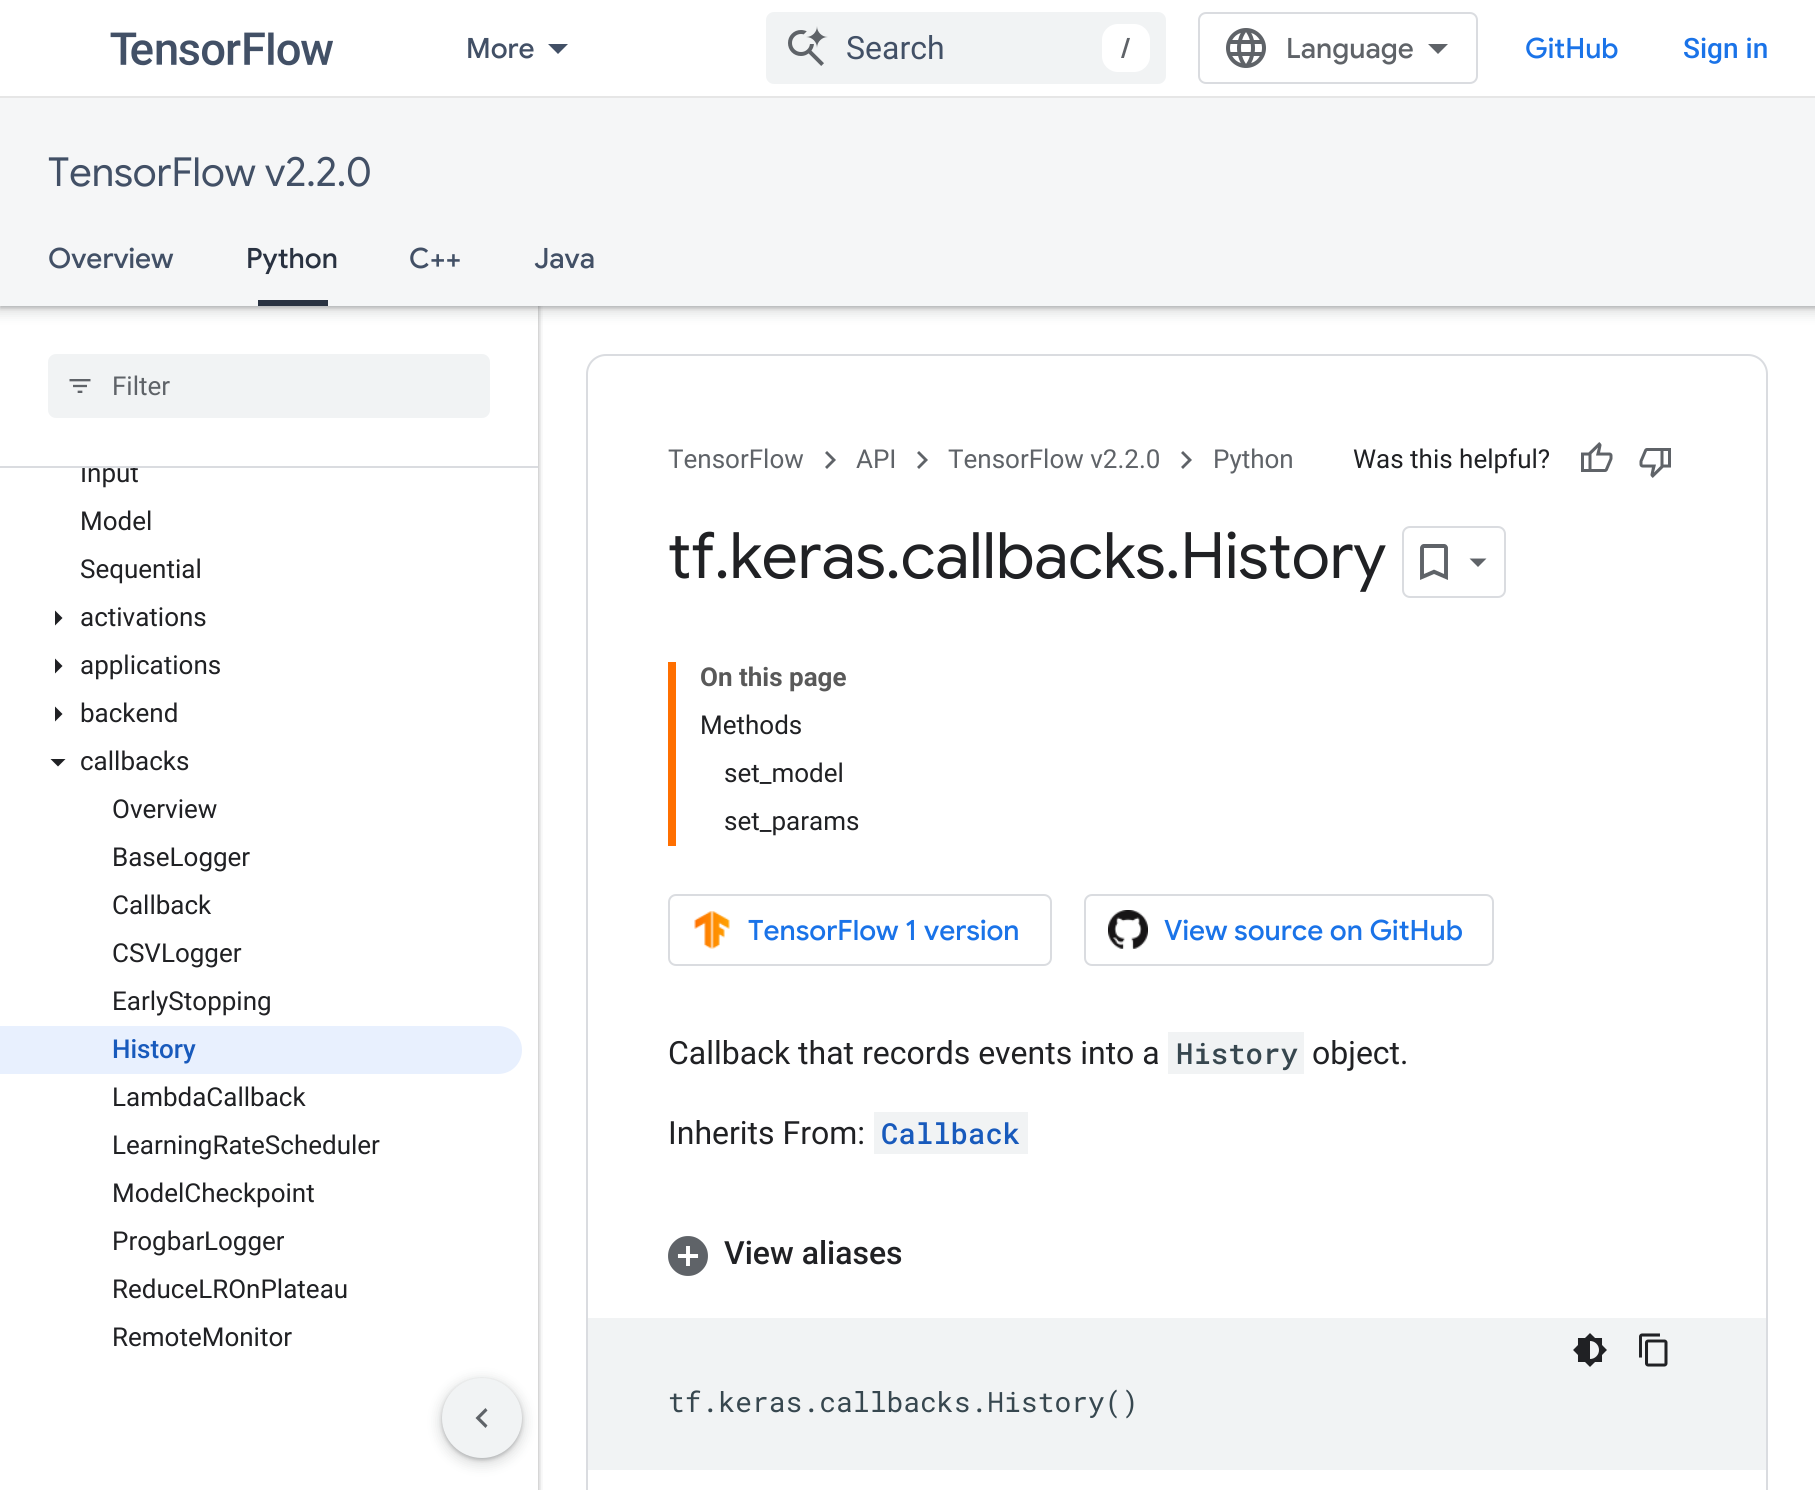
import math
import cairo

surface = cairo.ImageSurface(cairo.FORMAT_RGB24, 1815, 1490)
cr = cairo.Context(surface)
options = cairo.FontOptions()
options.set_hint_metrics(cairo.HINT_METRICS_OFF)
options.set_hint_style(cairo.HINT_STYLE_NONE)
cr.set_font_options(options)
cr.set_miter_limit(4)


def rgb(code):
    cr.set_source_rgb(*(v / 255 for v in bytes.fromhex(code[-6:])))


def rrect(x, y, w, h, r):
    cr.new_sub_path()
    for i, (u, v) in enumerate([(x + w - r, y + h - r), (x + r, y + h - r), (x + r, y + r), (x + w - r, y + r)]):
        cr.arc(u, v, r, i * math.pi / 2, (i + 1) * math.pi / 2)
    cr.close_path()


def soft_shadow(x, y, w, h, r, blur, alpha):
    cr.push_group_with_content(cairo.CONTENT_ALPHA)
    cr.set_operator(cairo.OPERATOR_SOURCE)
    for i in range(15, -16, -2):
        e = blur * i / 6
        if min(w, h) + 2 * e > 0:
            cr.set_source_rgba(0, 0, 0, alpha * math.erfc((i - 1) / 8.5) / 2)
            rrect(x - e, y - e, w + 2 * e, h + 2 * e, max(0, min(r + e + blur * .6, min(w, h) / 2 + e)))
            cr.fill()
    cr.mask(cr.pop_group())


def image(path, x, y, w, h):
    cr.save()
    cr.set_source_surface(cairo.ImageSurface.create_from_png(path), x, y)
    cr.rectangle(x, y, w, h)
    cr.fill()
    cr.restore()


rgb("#ffffff")
cr.paint()
cr.save()
cr.rectangle(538, 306, 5, 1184)
cr.clip()
rgb("#3c4043")
soft_shadow(-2, 0, 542, 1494, 0, 3, 0.15)
cr.restore()
cr.save()
cr.rectangle(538, 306, 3, 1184)
cr.clip()
rgb("#3c4043")
soft_shadow(0, 2, 538, 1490, 0, 2, 0.3)
cr.restore()
rgb("#3c4043")
soft_shadow(-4, 98, 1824, 216, 0, 6, 0.15)
soft_shadow(0, 100, 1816, 208, 0, 2, 0.3)
rgb("#ffffff")
cr.rectangle(0, 0, 1815, 96)
cr.fill()
rgb("#e6e6e6")
cr.rectangle(0, 96, 1815, 2)
cr.fill()
image("img/1.png", 110, 32, 223, 34)
rgb("#425066")
cr.new_path()
cr.move_to(548, 44)
cr.line_to(568, 44)
cr.line_to(558, 54)
cr.close_path()
cr.fill()
rgb("#f1f3f4")
rrect(766, 12, 400, 72, 8)
cr.fill()
image("img/2.png", 788, 26, 40, 40)
rgb("#ffffff")
rrect(1102, 24, 48, 48, 16)
cr.fill()
rrect(1199, 13, 278, 70, 7)
rgb("#dadce0")
cr.stroke()
image("img/3.png", 1226, 28, 40, 40)
rgb("#5f6368")
cr.new_path()
cr.move_to(1438, 54)
cr.line_to(1428, 44)
cr.line_to(1448, 44)
cr.close_path()
cr.fill()
rgb("#f5f6f7")
cr.rectangle(0, 98, 1815, 208)
cr.fill()
rgb("#293241")
cr.rectangle(258, 300, 70, 6)
cr.fill()
rgb("#f1f3f4")
rrect(48, 354, 442, 64, 8)
cr.fill()
image("img/4.png", 69, 379, 22, 14)
rgb("#202124")
cr.new_path()
cr.move_to(55, 625.5)
cr.line_to(55, 610.5)
cr.line_to(62.5, 618)
cr.close_path()
cr.fill()
cr.new_path()
cr.move_to(55, 673.5)
cr.line_to(55, 658.5)
cr.line_to(62.5, 666)
cr.close_path()
cr.fill()
cr.new_path()
cr.move_to(55, 721.5)
cr.line_to(55, 706.5)
cr.line_to(62.5, 714)
cr.close_path()
cr.fill()
cr.new_path()
cr.move_to(50.5, 759)
cr.line_to(65.5, 759)
cr.line_to(58, 766.5)
cr.close_path()
cr.fill()
rgb("#e8f0fe")
cr.new_path()
cr.move_to(0, 1026)
cr.line_to(498, 1026)
cr.curve_to(511.5, 1026, 522, 1036.5, 522, 1050)
cr.curve_to(522, 1063.5, 511.5, 1074, 498, 1074)
cr.line_to(0, 1074)
cr.close_path()
cr.fill()
rgb("#3c4043")
soft_shadow(438, 1378, 88, 88, 44, 6, 0.15)
soft_shadow(442, 1380, 80, 80, 40, 2, 0.3)
rgb("#f1f3f4")
cr.arc(482, 1418, 40, 0, 2 * math.pi)
cr.fill()
rgb("#5f6368")
cr.new_path()
cr.move_to(487.5, 1410.5)
cr.line_to(480, 1418)
cr.line_to(487.5, 1425.5)
cr.line_to(485.5, 1428)
cr.line_to(475.5, 1418)
cr.line_to(485.5, 1408)
cr.close_path()
cr.fill()
rrect(587, 355, 1180, 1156, 19)
rgb("#dadce0")
cr.stroke()
rgb("#5f6368")
cr.new_path()
cr.move_to(827, 451)
cr.line_to(836, 460)
cr.line_to(827, 469)
cr.line_to(825, 467)
cr.line_to(832, 460)
cr.line_to(825, 453)
cr.close_path()
cr.fill()
cr.new_path()
cr.move_to(919, 451)
cr.line_to(928, 460)
cr.line_to(919, 469)
cr.line_to(917, 467)
cr.line_to(924, 460)
cr.line_to(917, 453)
cr.close_path()
cr.fill()
cr.new_path()
cr.move_to(1183, 451)
cr.line_to(1192, 460)
cr.line_to(1183, 469)
cr.line_to(1181, 467)
cr.line_to(1188, 460)
cr.line_to(1181, 453)
cr.close_path()
cr.fill()
image("img/5.png", 1581, 442, 32, 30)
image("img/6.png", 1639, 448, 32, 30)
rrect(1403, 527, 102, 70, 7)
rgb("#dadce0")
cr.stroke()
image("img/7.png", 1420, 544, 28, 36)
rgb("#5f6368")
cr.new_path()
cr.move_to(1469.5, 558.5)
cr.line_to(1486.5, 558.5)
cr.line_to(1478, 567)
cr.close_path()
cr.fill()
rgb("#ff6f00")
cr.rectangle(668, 662, 8, 184)
cr.fill()
rrect(669, 895, 382, 70, 7)
rgb("#dadce0")
cr.stroke()
image("img/8.png", 694, 911, 36, 38)
rrect(1085, 895, 408, 70, 7)
cr.stroke()
image("img/9.png", 1108, 910, 40, 39)
rgb("#f1f3f4")
cr.rectangle(1168, 1032, 136, 42)
cr.fill()
cr.rectangle(874, 1112, 154, 42)
cr.fill()
image("img/10.png", 668, 1236, 40, 40)
cr.rectangle(588, 1318, 1178, 152)
cr.fill()
image("img/11.png", 1573, 1333, 34, 34)
image("img/12.png", 1639, 1333, 29, 34)
cr.select_font_face("Google Sans Medium")
cr.set_font_size(28)
rgb("#425066")
cr.move_to(466, 58)
cr.show_text("More")
cr.select_font_face("Roboto")
cr.set_font_size(32)
cr.move_to(846, 59)
cr.show_text("Search")
cr.select_font_face("Google Sans Medium")
cr.set_font_size(28)
rgb("#5f6368")
cr.move_to(1121, 58)
cr.show_text("/")
cr.move_to(1286, 58)
cr.show_text("Language")
rgb("#1a73e8")
cr.move_to(1525, 58)
cr.show_text("GitHub")
cr.select_font_face("Roboto Medium")
cr.move_to(1683, 58)
cr.show_text("Sign in")
cr.select_font_face("Google Sans")
cr.set_font_size(40)
rgb("#425066")
cr.move_to(48, 186)
cr.show_text("TensorFlow v2.2.0")
cr.select_font_face("Google Sans Medium")
cr.set_font_size(28)
cr.move_to(48, 268)
cr.show_text("Overview")
rgb("#293241")
cr.move_to(246, 268)
cr.show_text("Python")
rgb("#425066")
cr.move_to(409, 268)
cr.show_text("C++")
cr.move_to(534, 268)
cr.show_text("Java")
cr.select_font_face("Roboto")
cr.set_font_size(26)
rgb("#5f6368")
cr.move_to(112, 395)
cr.show_text("Filter")
rgb("#202124")
cr.move_to(80, 482)
cr.show_text("Input")
rgb("#dadce0")
cr.rectangle(0, 466, 538, 2)
cr.fill()
rgb("#ffffff")
cr.rectangle(82, 463, 54, 3)
cr.fill()
rgb("#202124")
for x, y, s in [
    (80, 530, "Model"),
    (80, 578, "Sequential"),
    (80, 626, "activations"),
    (80, 674, "applications"),
    (80, 722, "backend"),
    (80, 770, "callbacks"),
    (112, 818, "Overview"),
    (112, 866, "BaseLogger"),
    (112, 914, "Callback"),
    (112, 962, "CSVLogger"),
    (112, 1010, "EarlyStopping"),
]:
    cr.move_to(x, y)
    cr.show_text(s)
cr.select_font_face("Roboto Medium")
rgb("#185abc")
cr.move_to(112, 1058)
cr.show_text("History")
cr.select_font_face("Roboto")
rgb("#202124")
for x, y, s in [
    (112, 1106, "LambdaCallback"),
    (112, 1154, "LearningRateScheduler"),
    (112, 1202, "ModelCheckpoint"),
    (112, 1250, "Progbar"),
]:
    cr.move_to(x, y)
    cr.show_text(s)
cr.save()
cr.rectangle(112, 786, 172, 672)
cr.clip()
cr.move_to(204, 1250)
cr.show_text("Logger")
cr.restore()
cr.move_to(112, 1298)
cr.show_text("ReduceLROnPlateau")
cr.move_to(112, 1346)
cr.show_text("RemoteMonitor")
rgb("#5f6368")
for x, y, s in [
    (668, 468, "TensorFlow"),
    (856, 468, "API"),
    (948, 468, "TensorFlow v2.2.0"),
    (1213, 468, "Python"),
]:
    cr.move_to(x, y)
    cr.show_text(s)
rgb("#202124")
cr.move_to(1353, 468)
cr.show_text("Was this helpful?")
cr.select_font_face("Google Sans")
cr.set_font_size(64)
cr.move_to(668, 578)
cr.show_text("tf.keras.callbacks.History")
cr.select_font_face("Roboto", cairo.FONT_SLANT_NORMAL, cairo.FONT_WEIGHT_BOLD)
cr.set_font_size(26)
rgb("#595959")
cr.move_to(700, 686)
cr.show_text("On this page")
cr.select_font_face("Roboto")
rgb("#202124")
for x, y, s in [
    (700, 734, "Methods"),
    (724, 782, "set_model"),
    (724, 830, "set_params"),
]:
    cr.move_to(x, y)
    cr.show_text(s)
cr.select_font_face("Google Sans Medium")
cr.set_font_size(28)
rgb("#1a73e8")
cr.move_to(748, 940)
cr.show_text("TensorFlow 1 version")
cr.move_to(1164, 940)
cr.show_text("View source on GitHub")
cr.select_font_face("Roboto")
cr.set_font_size(32)
rgb("#202124")
cr.move_to(668, 1064)
cr.show_text("Callback that records events into a")
cr.select_font_face("Roboto Mono Medium")
cr.set_font_size(29)
rgb("#37474f")
cr.move_to(1176, 1064)
cr.show_text("History")
cr.select_font_face("Roboto")
cr.set_font_size(32)
rgb("#202124")
cr.move_to(1312, 1064)
cr.show_text("object.")
cr.move_to(668, 1144)
cr.show_text("Inherits From:")
cr.select_font_face("Roboto Mono Medium")
cr.set_font_size(29)
rgb("#185abc")
cr.move_to(881, 1144)
cr.show_text("Callback")
cr.select_font_face("Roboto Medium")
cr.set_font_size(32)
rgb("#202124")
cr.move_to(724, 1264)
cr.show_text("View aliases")
cr.select_font_face("Roboto Mono")
cr.set_font_size(28)
rgb("#37474f")
cr.move_to(668, 1412)
cr.show_text("tf.keras.callbacks.History()")
surface.write_to_png("page.png")
